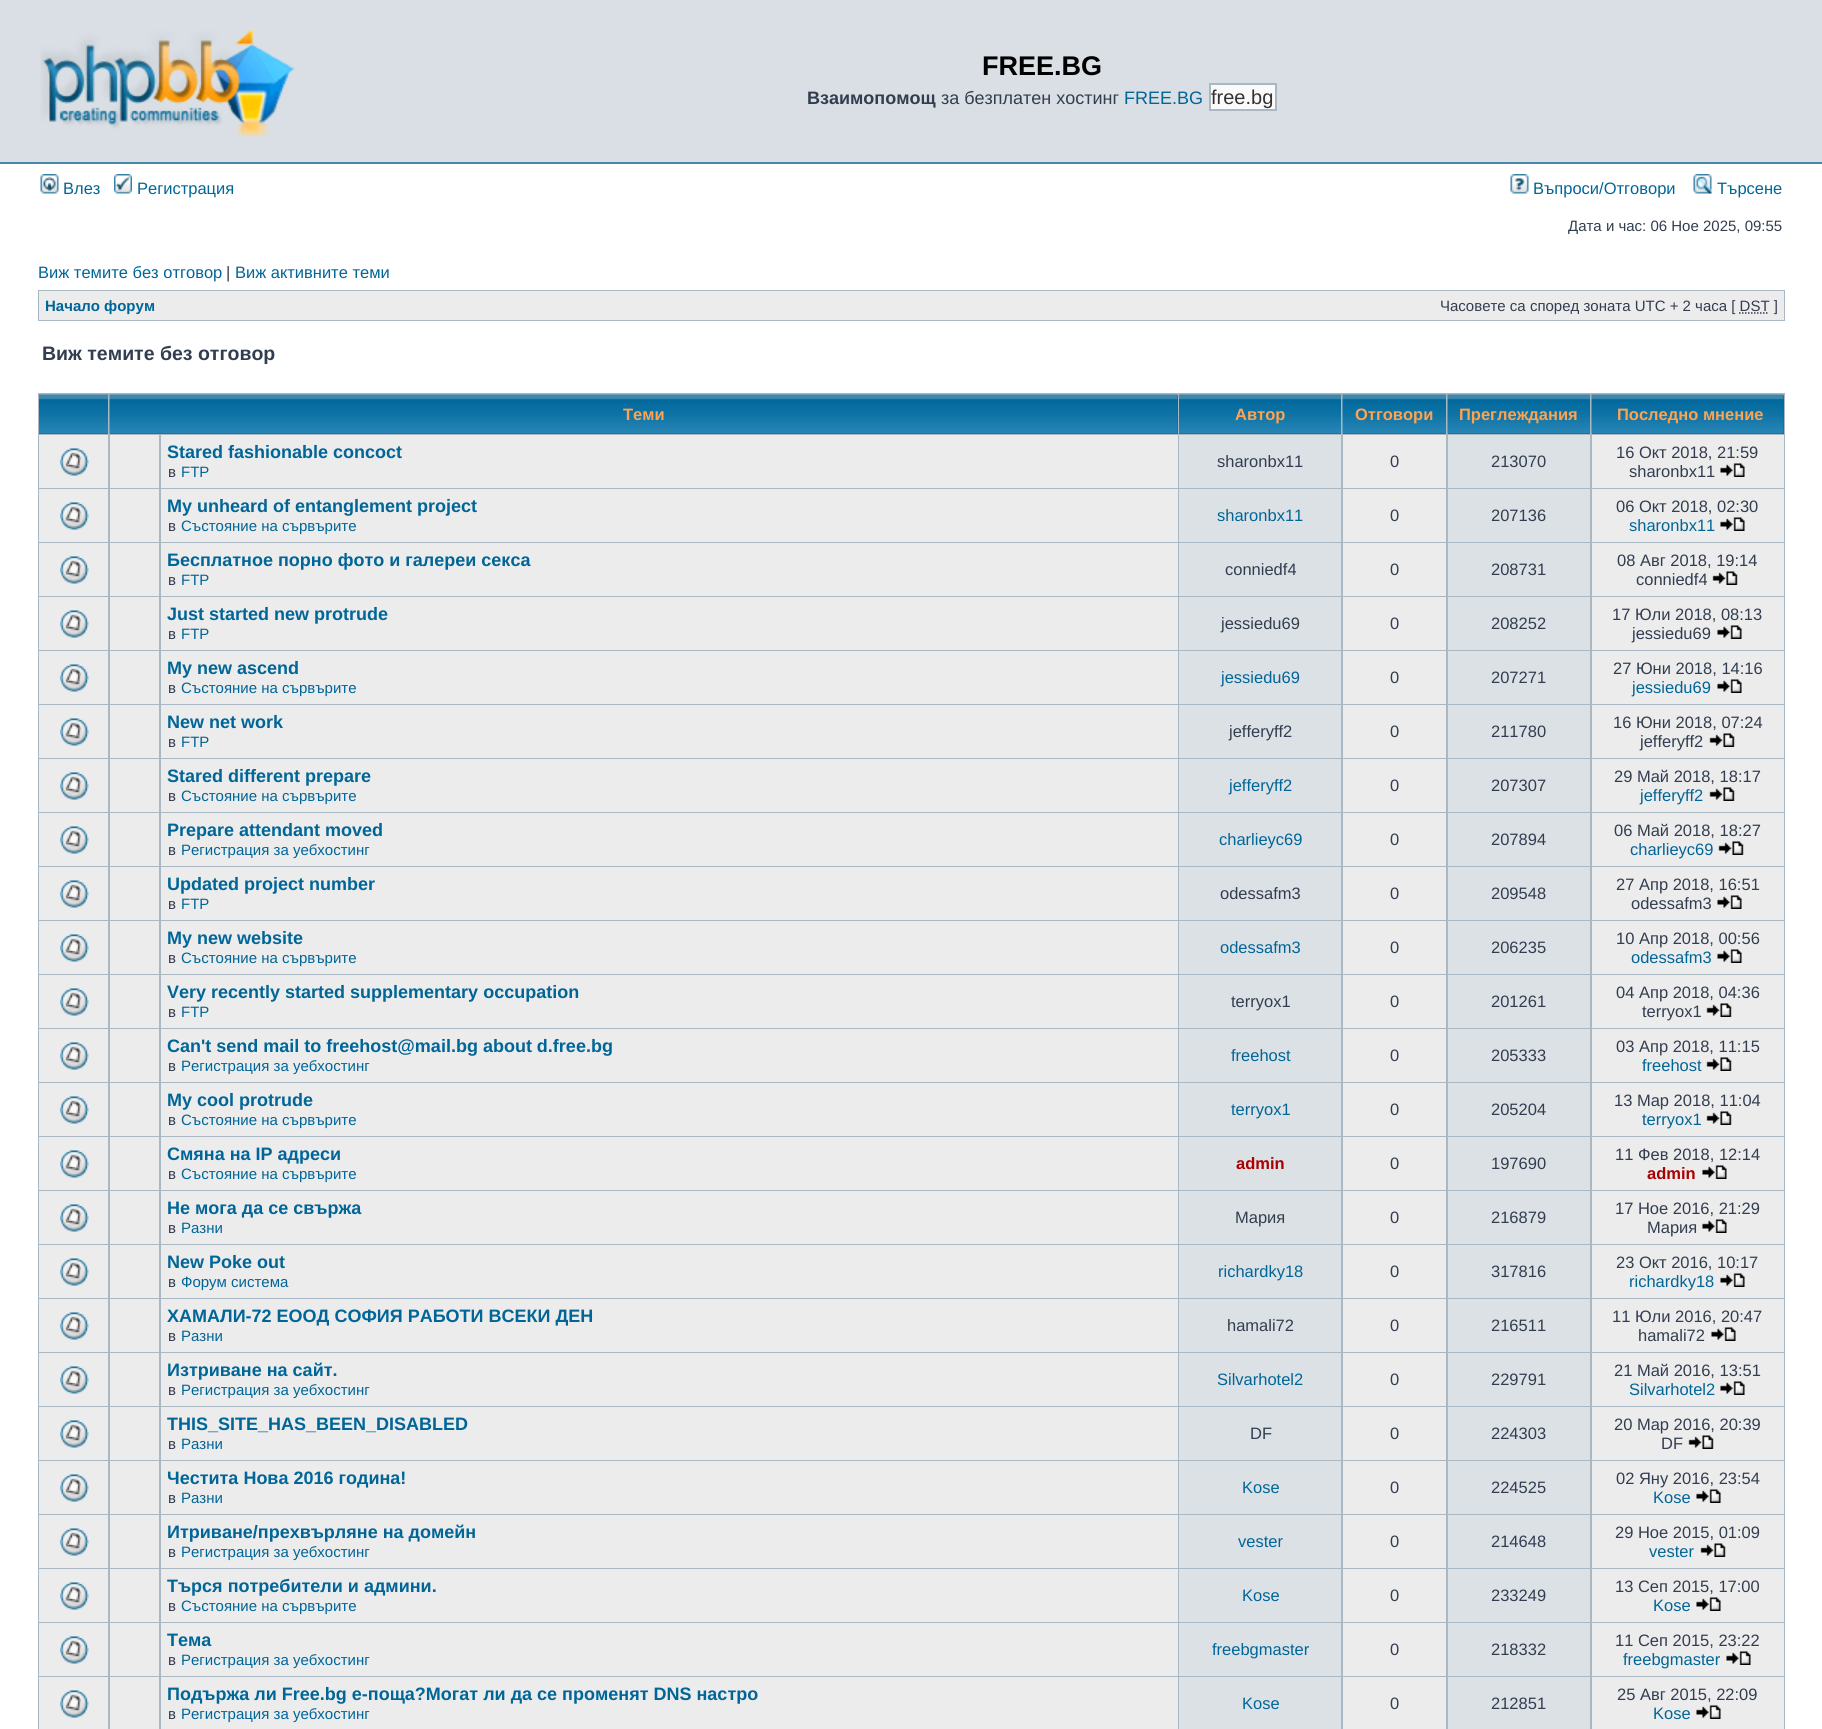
import math
import cairo

surface = cairo.ImageSurface(cairo.FORMAT_RGB24, 1822, 1729)
cr = cairo.Context(surface)
options = cairo.FontOptions()
options.set_hint_metrics(cairo.HINT_METRICS_OFF)
options.set_hint_style(cairo.HINT_STYLE_NONE)
cr.set_font_options(options)
cr.set_miter_limit(4)


def rgb(code):
    cr.set_source_rgb(*(v / 255 for v in bytes.fromhex(code[-6:])))


def image(path, x, y, w, h):
    cr.save()
    cr.set_source_surface(cairo.ImageSurface.create_from_png(path), x, y)
    cr.rectangle(x, y, w, h)
    cr.fill()
    cr.restore()


rgb("#ffffff")
cr.paint()
rgb("#d9dfe4")
cr.rectangle(0, 0, 1822, 162)
cr.fill()
rgb("#4787a7")
cr.rectangle(0, 162, 1822, 2)
cr.fill()
image("img/1.png", 40, 29, 255, 108)
rgb("#fafafa")
cr.rectangle(1210, 84, 66, 26)
cr.fill_preserve()
rgb("#a9b8c2")
cr.stroke()
image("img/2.png", 40, 174, 19, 20)
image("img/3.png", 114, 174, 18, 20)
image("img/4.png", 1510, 174, 19, 20)
image("img/5.png", 1693, 174, 19, 20)
cr.rectangle(38, 290, 1747, 31)
cr.fill()
rgb("#ececec")
cr.rectangle(39, 291, 1745, 29)
cr.fill()
cr.new_path()
cr.move_to(1739, 313)
cr.line_to(1769, 313)
rgb("#323d4f")
cr.set_line_width(1.5)
cr.set_dash([1.5, 1.5])
cr.stroke()
rgb("#a9b8c2")
cr.rectangle(38, 393, 1747, 1336)
cr.fill()
rgb("#006699")
cr.rectangle(39, 433, 69, 1)
cr.fill()
image("img/6.png", 39, 394, 69, 40)
cr.rectangle(110, 395, 1068, 39)
cr.fill()
image("img/7.png", 109, 394, 1069, 40)
cr.rectangle(1179, 433, 162, 1)
cr.fill()
image("img/8.png", 1179, 394, 162, 40)
cr.rectangle(1343, 433, 103, 1)
cr.fill()
image("img/9.png", 1342, 394, 104, 40)
cr.rectangle(1448, 433, 142, 1)
cr.fill()
image("img/10.png", 1447, 394, 143, 40)
cr.rectangle(1592, 395, 192, 39)
cr.fill()
image("img/11.png", 1591, 394, 193, 40)
rgb("#ececec")
cr.rectangle(39, 435, 69, 53)
cr.fill()
image("img/12.png", 60, 448, 29, 28)
for x, y, w, h, color in [
    (110, 435, 49, 53, "#ececec"),
    (161, 435, 1017, 53, "#ececec"),
    (1179, 435, 162, 53, "#dce1e5"),
    (1343, 435, 103, 53, "#ececec"),
    (1448, 435, 142, 53, "#dce1e5"),
    (1592, 435, 192, 53, "#ececec"),
]:
    rgb(color)
    cr.rectangle(x, y, w, h)
    cr.fill()
image("img/13.png", 1720, 463, 25, 14)
cr.rectangle(39, 489, 69, 53)
cr.fill()
image("img/12.png", 60, 502, 29, 28)
for x, y, w, h, color in [
    (110, 489, 49, 53, "#ececec"),
    (161, 489, 1017, 53, "#ececec"),
    (1179, 489, 162, 53, "#dce1e5"),
    (1343, 489, 103, 53, "#ececec"),
    (1448, 489, 142, 53, "#dce1e5"),
    (1592, 489, 192, 53, "#ececec"),
]:
    rgb(color)
    cr.rectangle(x, y, w, h)
    cr.fill()
image("img/13.png", 1720, 517, 25, 14)
cr.rectangle(39, 543, 69, 53)
cr.fill()
image("img/12.png", 60, 556, 29, 28)
for x, y, w, h, color in [
    (110, 543, 49, 53, "#ececec"),
    (161, 543, 1017, 53, "#ececec"),
    (1179, 543, 162, 53, "#dce1e5"),
    (1343, 543, 103, 53, "#ececec"),
    (1448, 543, 142, 53, "#dce1e5"),
    (1592, 543, 192, 53, "#ececec"),
]:
    rgb(color)
    cr.rectangle(x, y, w, h)
    cr.fill()
image("img/14.png", 1712, 571, 26, 14)
cr.rectangle(39, 597, 69, 53)
cr.fill()
image("img/12.png", 60, 610, 29, 28)
for x, y, w, h, color in [
    (110, 597, 49, 53, "#ececec"),
    (161, 597, 1017, 53, "#ececec"),
    (1179, 597, 162, 53, "#dce1e5"),
    (1343, 597, 103, 53, "#ececec"),
    (1448, 597, 142, 53, "#dce1e5"),
    (1592, 597, 192, 53, "#ececec"),
]:
    rgb(color)
    cr.rectangle(x, y, w, h)
    cr.fill()
image("img/13.png", 1717, 625, 25, 14)
cr.rectangle(39, 651, 69, 53)
cr.fill()
image("img/12.png", 60, 664, 29, 28)
for x, y, w, h, color in [
    (110, 651, 49, 53, "#ececec"),
    (161, 651, 1017, 53, "#ececec"),
    (1179, 651, 162, 53, "#dce1e5"),
    (1343, 651, 103, 53, "#ececec"),
    (1448, 651, 142, 53, "#dce1e5"),
    (1592, 651, 192, 53, "#ececec"),
]:
    rgb(color)
    cr.rectangle(x, y, w, h)
    cr.fill()
image("img/13.png", 1717, 679, 25, 14)
cr.rectangle(39, 705, 69, 53)
cr.fill()
image("img/12.png", 60, 718, 29, 28)
for x, y, w, h, color in [
    (110, 705, 49, 53, "#ececec"),
    (161, 705, 1017, 53, "#ececec"),
    (1179, 705, 162, 53, "#dce1e5"),
    (1343, 705, 103, 53, "#ececec"),
    (1448, 705, 142, 53, "#dce1e5"),
    (1592, 705, 192, 53, "#ececec"),
]:
    rgb(color)
    cr.rectangle(x, y, w, h)
    cr.fill()
image("img/14.png", 1709, 733, 26, 14)
cr.rectangle(39, 759, 69, 53)
cr.fill()
image("img/12.png", 60, 772, 29, 28)
for x, y, w, h, color in [
    (110, 759, 49, 53, "#ececec"),
    (161, 759, 1017, 53, "#ececec"),
    (1179, 759, 162, 53, "#dce1e5"),
    (1343, 759, 103, 53, "#ececec"),
    (1448, 759, 142, 53, "#dce1e5"),
    (1592, 759, 192, 53, "#ececec"),
]:
    rgb(color)
    cr.rectangle(x, y, w, h)
    cr.fill()
image("img/14.png", 1709, 787, 26, 14)
cr.rectangle(39, 813, 69, 53)
cr.fill()
image("img/12.png", 60, 826, 29, 28)
for x, y, w, h, color in [
    (110, 813, 49, 53, "#ececec"),
    (161, 813, 1017, 53, "#ececec"),
    (1179, 813, 162, 53, "#dce1e5"),
    (1343, 813, 103, 53, "#ececec"),
    (1448, 813, 142, 53, "#dce1e5"),
    (1592, 813, 192, 53, "#ececec"),
]:
    rgb(color)
    cr.rectangle(x, y, w, h)
    cr.fill()
image("img/14.png", 1718, 841, 26, 14)
cr.rectangle(39, 867, 69, 53)
cr.fill()
image("img/12.png", 60, 880, 29, 28)
for x, y, w, h, color in [
    (110, 867, 49, 53, "#ececec"),
    (161, 867, 1017, 53, "#ececec"),
    (1179, 867, 162, 53, "#dce1e5"),
    (1343, 867, 103, 53, "#ececec"),
    (1448, 867, 142, 53, "#dce1e5"),
    (1592, 867, 192, 53, "#ececec"),
]:
    rgb(color)
    cr.rectangle(x, y, w, h)
    cr.fill()
image("img/13.png", 1717, 895, 25, 14)
cr.rectangle(39, 921, 69, 53)
cr.fill()
image("img/12.png", 60, 934, 29, 28)
for x, y, w, h, color in [
    (110, 921, 49, 53, "#ececec"),
    (161, 921, 1017, 53, "#ececec"),
    (1179, 921, 162, 53, "#dce1e5"),
    (1343, 921, 103, 53, "#ececec"),
    (1448, 921, 142, 53, "#dce1e5"),
    (1592, 921, 192, 53, "#ececec"),
]:
    rgb(color)
    cr.rectangle(x, y, w, h)
    cr.fill()
image("img/13.png", 1717, 949, 25, 14)
cr.rectangle(39, 975, 69, 53)
cr.fill()
image("img/12.png", 60, 988, 29, 28)
for x, y, w, h, color in [
    (110, 975, 49, 53, "#ececec"),
    (161, 975, 1017, 53, "#ececec"),
    (1179, 975, 162, 53, "#dce1e5"),
    (1343, 975, 103, 53, "#ececec"),
    (1448, 975, 142, 53, "#dce1e5"),
    (1592, 975, 192, 53, "#ececec"),
]:
    rgb(color)
    cr.rectangle(x, y, w, h)
    cr.fill()
image("img/14.png", 1706, 1003, 26, 14)
cr.rectangle(39, 1029, 69, 53)
cr.fill()
image("img/12.png", 60, 1042, 29, 28)
for x, y, w, h, color in [
    (110, 1029, 49, 53, "#ececec"),
    (161, 1029, 1017, 53, "#ececec"),
    (1179, 1029, 162, 53, "#dce1e5"),
    (1343, 1029, 103, 53, "#ececec"),
    (1448, 1029, 142, 53, "#dce1e5"),
    (1592, 1029, 192, 53, "#ececec"),
]:
    rgb(color)
    cr.rectangle(x, y, w, h)
    cr.fill()
image("img/14.png", 1706, 1057, 26, 14)
cr.rectangle(39, 1083, 69, 53)
cr.fill()
image("img/12.png", 60, 1096, 29, 28)
for x, y, w, h, color in [
    (110, 1083, 49, 53, "#ececec"),
    (161, 1083, 1017, 53, "#ececec"),
    (1179, 1083, 162, 53, "#dce1e5"),
    (1343, 1083, 103, 53, "#ececec"),
    (1448, 1083, 142, 53, "#dce1e5"),
    (1592, 1083, 192, 53, "#ececec"),
]:
    rgb(color)
    cr.rectangle(x, y, w, h)
    cr.fill()
image("img/14.png", 1706, 1111, 26, 14)
cr.rectangle(39, 1137, 69, 53)
cr.fill()
image("img/12.png", 60, 1150, 29, 28)
for x, y, w, h, color in [
    (110, 1137, 49, 53, "#ececec"),
    (161, 1137, 1017, 53, "#ececec"),
    (1179, 1137, 162, 53, "#dce1e5"),
    (1343, 1137, 103, 53, "#ececec"),
    (1448, 1137, 142, 53, "#dce1e5"),
    (1592, 1137, 192, 53, "#ececec"),
]:
    rgb(color)
    cr.rectangle(x, y, w, h)
    cr.fill()
image("img/13.png", 1702, 1165, 25, 14)
cr.rectangle(39, 1191, 69, 53)
cr.fill()
image("img/12.png", 60, 1204, 29, 28)
for x, y, w, h, color in [
    (110, 1191, 49, 53, "#ececec"),
    (161, 1191, 1017, 53, "#ececec"),
    (1179, 1191, 162, 53, "#dce1e5"),
    (1343, 1191, 103, 53, "#ececec"),
    (1448, 1191, 142, 53, "#dce1e5"),
    (1592, 1191, 192, 53, "#ececec"),
]:
    rgb(color)
    cr.rectangle(x, y, w, h)
    cr.fill()
image("img/13.png", 1702, 1219, 25, 14)
cr.rectangle(39, 1245, 69, 53)
cr.fill()
image("img/12.png", 60, 1258, 29, 28)
for x, y, w, h, color in [
    (110, 1245, 49, 53, "#ececec"),
    (161, 1245, 1017, 53, "#ececec"),
    (1179, 1245, 162, 53, "#dce1e5"),
    (1343, 1245, 103, 53, "#ececec"),
    (1448, 1245, 142, 53, "#dce1e5"),
    (1592, 1245, 192, 53, "#ececec"),
]:
    rgb(color)
    cr.rectangle(x, y, w, h)
    cr.fill()
image("img/13.png", 1720, 1273, 25, 14)
cr.rectangle(39, 1299, 69, 53)
cr.fill()
image("img/12.png", 60, 1312, 29, 28)
for x, y, w, h, color in [
    (110, 1299, 49, 53, "#ececec"),
    (161, 1299, 1017, 53, "#ececec"),
    (1179, 1299, 162, 53, "#dce1e5"),
    (1343, 1299, 103, 53, "#ececec"),
    (1448, 1299, 142, 53, "#dce1e5"),
    (1592, 1299, 192, 53, "#ececec"),
]:
    rgb(color)
    cr.rectangle(x, y, w, h)
    cr.fill()
image("img/13.png", 1711, 1327, 25, 14)
cr.rectangle(39, 1353, 69, 53)
cr.fill()
image("img/12.png", 60, 1366, 29, 28)
for x, y, w, h, color in [
    (110, 1353, 49, 53, "#ececec"),
    (161, 1353, 1017, 53, "#ececec"),
    (1179, 1353, 162, 53, "#dce1e5"),
    (1343, 1353, 103, 53, "#ececec"),
    (1448, 1353, 142, 53, "#dce1e5"),
    (1592, 1353, 192, 53, "#ececec"),
]:
    rgb(color)
    cr.rectangle(x, y, w, h)
    cr.fill()
image("img/13.png", 1720, 1381, 25, 14)
cr.rectangle(39, 1407, 69, 53)
cr.fill()
image("img/12.png", 60, 1420, 29, 28)
for x, y, w, h, color in [
    (110, 1407, 49, 53, "#ececec"),
    (161, 1407, 1017, 53, "#ececec"),
    (1179, 1407, 162, 53, "#dce1e5"),
    (1343, 1407, 103, 53, "#ececec"),
    (1448, 1407, 142, 53, "#dce1e5"),
    (1592, 1407, 192, 53, "#ececec"),
]:
    rgb(color)
    cr.rectangle(x, y, w, h)
    cr.fill()
image("img/14.png", 1688, 1435, 26, 14)
cr.rectangle(39, 1461, 69, 53)
cr.fill()
image("img/12.png", 60, 1474, 29, 28)
for x, y, w, h, color in [
    (110, 1461, 49, 53, "#ececec"),
    (161, 1461, 1017, 53, "#ececec"),
    (1179, 1461, 162, 53, "#dce1e5"),
    (1343, 1461, 103, 53, "#ececec"),
    (1448, 1461, 142, 53, "#dce1e5"),
    (1592, 1461, 192, 53, "#ececec"),
]:
    rgb(color)
    cr.rectangle(x, y, w, h)
    cr.fill()
image("img/13.png", 1696, 1489, 25, 14)
cr.rectangle(39, 1515, 69, 53)
cr.fill()
image("img/12.png", 60, 1528, 29, 28)
for x, y, w, h, color in [
    (110, 1515, 49, 53, "#ececec"),
    (161, 1515, 1017, 53, "#ececec"),
    (1179, 1515, 162, 53, "#dce1e5"),
    (1343, 1515, 103, 53, "#ececec"),
    (1448, 1515, 142, 53, "#dce1e5"),
    (1592, 1515, 192, 53, "#ececec"),
]:
    rgb(color)
    cr.rectangle(x, y, w, h)
    cr.fill()
image("img/14.png", 1700, 1543, 26, 14)
cr.rectangle(39, 1569, 69, 53)
cr.fill()
image("img/12.png", 60, 1582, 29, 28)
for x, y, w, h, color in [
    (110, 1569, 49, 53, "#ececec"),
    (161, 1569, 1017, 53, "#ececec"),
    (1179, 1569, 162, 53, "#dce1e5"),
    (1343, 1569, 103, 53, "#ececec"),
    (1448, 1569, 142, 53, "#dce1e5"),
    (1592, 1569, 192, 53, "#ececec"),
]:
    rgb(color)
    cr.rectangle(x, y, w, h)
    cr.fill()
image("img/13.png", 1696, 1597, 25, 14)
cr.rectangle(39, 1623, 69, 53)
cr.fill()
image("img/12.png", 60, 1636, 29, 28)
for x, y, w, h, color in [
    (110, 1623, 49, 53, "#ececec"),
    (161, 1623, 1017, 53, "#ececec"),
    (1179, 1623, 162, 53, "#dce1e5"),
    (1343, 1623, 103, 53, "#ececec"),
    (1448, 1623, 142, 53, "#dce1e5"),
    (1592, 1623, 192, 53, "#ececec"),
]:
    rgb(color)
    cr.rectangle(x, y, w, h)
    cr.fill()
image("img/13.png", 1726, 1651, 25, 14)
cr.rectangle(39, 1677, 69, 52)
cr.fill()
image("img/12.png", 60, 1690, 29, 28)
for x, y, w, h, color in [
    (110, 1677, 49, 52, "#ececec"),
    (161, 1677, 1017, 52, "#ececec"),
    (1179, 1677, 162, 52, "#dce1e5"),
    (1343, 1677, 103, 52, "#ececec"),
    (1448, 1677, 142, 52, "#dce1e5"),
    (1592, 1677, 192, 52, "#ececec"),
]:
    rgb(color)
    cr.rectangle(x, y, w, h)
    cr.fill()
image("img/13.png", 1696, 1705, 25, 14)
cr.select_font_face("Liberation Sans", cairo.FONT_SLANT_NORMAL, cairo.FONT_WEIGHT_BOLD)
cr.set_font_size(27)
rgb("#000000")
cr.move_to(982, 75)
cr.show_text("FREE.BG")
cr.set_font_size(18)
rgb("#323d4f")
cr.move_to(807, 104)
cr.show_text("Взаимопомощ")
cr.select_font_face("Liberation Sans")
cr.move_to(941, 104)
cr.show_text("за безплатен хостинг")
rgb("#006597")
cr.move_to(1124, 104)
cr.show_text("FREE.BG")
cr.set_font_size(20)
rgb("#333333")
cr.move_to(1211, 104)
cr.show_text("free.bg")
cr.set_font_size(16.5)
rgb("#006597")
for x, y, s in [
    (63, 194, "Влез"),
    (137, 194, "Регистрация"),
    (1533, 194, "Въпроси/Отговори"),
    (1717, 194, "Търсене"),
]:
    cr.move_to(x, y)
    cr.show_text(s)
cr.set_font_size(15)
rgb("#323d4f")
cr.move_to(1568, 231)
cr.show_text("Дата и час: 06 Ное 2025, 09:55")
cr.set_font_size(16.5)
rgb("#006597")
cr.move_to(38, 278)
cr.show_text("Виж темите без отговор")
rgb("#323d4f")
cr.move_to(226, 278)
cr.show_text("|")
rgb("#006597")
cr.move_to(235, 278)
cr.show_text("Виж активните теми")
cr.select_font_face("Liberation Sans", cairo.FONT_SLANT_NORMAL, cairo.FONT_WEIGHT_BOLD)
cr.set_font_size(15)
cr.move_to(45, 311)
cr.show_text("Начало форум")
cr.select_font_face("Liberation Sans")
rgb("#323d4f")
cr.move_to(1440, 311)
cr.show_text("Часовете са според зоната UTC + 2 часа [ DST ]")
cr.select_font_face("Liberation Sans", cairo.FONT_SLANT_NORMAL, cairo.FONT_WEIGHT_BOLD)
cr.set_font_size(19.5)
cr.move_to(42, 360)
cr.show_text("Виж темите без отговор")
cr.set_font_size(16.5)
rgb("#ffa34f")
for x, y, s in [
    (623, 420, "Теми"),
    (1235, 420, "Автор"),
    (1355, 420, "Отговори"),
    (1459, 420, "Преглеждания"),
    (1617, 420, "Последно мнение"),
]:
    cr.move_to(x, y)
    cr.show_text(s)
cr.set_font_size(18)
rgb("#006597")
cr.move_to(167, 458)
cr.show_text("Stared fashionable concoct")
cr.select_font_face("Liberation Sans")
cr.set_font_size(15)
rgb("#323d4f")
cr.move_to(168, 477)
cr.show_text("в")
rgb("#006597")
cr.move_to(181, 477)
cr.show_text("FTP")
cr.set_font_size(16.5)
rgb("#323d4f")
for x, y, s in [
    (1217, 467, "sharonbx11"),
    (1390, 467, "0"),
    (1491, 467, "213070"),
    (1616, 458, "16 Окт 2018, 21:59"),
    (1629, 477, "sharonbx11"),
]:
    cr.move_to(x, y)
    cr.show_text(s)
cr.select_font_face("Liberation Sans", cairo.FONT_SLANT_NORMAL, cairo.FONT_WEIGHT_BOLD)
cr.set_font_size(18)
rgb("#006597")
cr.move_to(167, 512)
cr.show_text("My unheard of entanglement project")
cr.select_font_face("Liberation Sans")
cr.set_font_size(15)
rgb("#323d4f")
cr.move_to(168, 531)
cr.show_text("в")
rgb("#006597")
cr.move_to(181, 531)
cr.show_text("Състояние на сървърите")
cr.set_font_size(16.5)
cr.move_to(1217, 521)
cr.show_text("sharonbx11")
rgb("#323d4f")
for x, y, s in [
    (1390, 521, "0"),
    (1491, 521, "207136"),
    (1616, 512, "06 Окт 2018, 02:30"),
]:
    cr.move_to(x, y)
    cr.show_text(s)
rgb("#006597")
cr.move_to(1629, 531)
cr.show_text("sharonbx11")
cr.select_font_face("Liberation Sans", cairo.FONT_SLANT_NORMAL, cairo.FONT_WEIGHT_BOLD)
cr.set_font_size(18)
cr.move_to(167, 566)
cr.show_text("Бесплатное порно фото и галереи секса")
cr.select_font_face("Liberation Sans")
cr.set_font_size(15)
rgb("#323d4f")
cr.move_to(168, 585)
cr.show_text("в")
rgb("#006597")
cr.move_to(181, 585)
cr.show_text("FTP")
cr.set_font_size(16.5)
rgb("#323d4f")
for x, y, s in [
    (1225, 575, "conniedf4"),
    (1390, 575, "0"),
    (1491, 575, "208731"),
    (1617, 566, "08 Авг 2018, 19:14"),
    (1636, 585, "conniedf4"),
]:
    cr.move_to(x, y)
    cr.show_text(s)
cr.select_font_face("Liberation Sans", cairo.FONT_SLANT_NORMAL, cairo.FONT_WEIGHT_BOLD)
cr.set_font_size(18)
rgb("#006597")
cr.move_to(167, 620)
cr.show_text("Just started new protrude")
cr.select_font_face("Liberation Sans")
cr.set_font_size(15)
rgb("#323d4f")
cr.move_to(168, 639)
cr.show_text("в")
rgb("#006597")
cr.move_to(181, 639)
cr.show_text("FTP")
cr.set_font_size(16.5)
rgb("#323d4f")
for x, y, s in [
    (1221, 629, "jessiedu69"),
    (1390, 629, "0"),
    (1491, 629, "208252"),
    (1612, 620, "17 Юли 2018, 08:13"),
    (1632, 639, "jessiedu69"),
]:
    cr.move_to(x, y)
    cr.show_text(s)
cr.select_font_face("Liberation Sans", cairo.FONT_SLANT_NORMAL, cairo.FONT_WEIGHT_BOLD)
cr.set_font_size(18)
rgb("#006597")
cr.move_to(167, 674)
cr.show_text("My new ascend")
cr.select_font_face("Liberation Sans")
cr.set_font_size(15)
rgb("#323d4f")
cr.move_to(168, 693)
cr.show_text("в")
rgb("#006597")
cr.move_to(181, 693)
cr.show_text("Състояние на сървърите")
cr.set_font_size(16.5)
cr.move_to(1221, 683)
cr.show_text("jessiedu69")
rgb("#323d4f")
for x, y, s in [
    (1390, 683, "0"),
    (1491, 683, "207271"),
    (1613, 674, "27 Юни 2018, 14:16"),
]:
    cr.move_to(x, y)
    cr.show_text(s)
rgb("#006597")
cr.move_to(1632, 693)
cr.show_text("jessiedu69")
cr.select_font_face("Liberation Sans", cairo.FONT_SLANT_NORMAL, cairo.FONT_WEIGHT_BOLD)
cr.set_font_size(18)
cr.move_to(167, 728)
cr.show_text("New net work")
cr.select_font_face("Liberation Sans")
cr.set_font_size(15)
rgb("#323d4f")
cr.move_to(168, 747)
cr.show_text("в")
rgb("#006597")
cr.move_to(181, 747)
cr.show_text("FTP")
cr.set_font_size(16.5)
rgb("#323d4f")
for x, y, s in [
    (1229, 737, "jefferyff2"),
    (1390, 737, "0"),
    (1491, 737, "211780"),
    (1613, 728, "16 Юни 2018, 07:24"),
    (1640, 747, "jefferyff2"),
]:
    cr.move_to(x, y)
    cr.show_text(s)
cr.select_font_face("Liberation Sans", cairo.FONT_SLANT_NORMAL, cairo.FONT_WEIGHT_BOLD)
cr.set_font_size(18)
rgb("#006597")
cr.move_to(167, 782)
cr.show_text("Stared different prepare")
cr.select_font_face("Liberation Sans")
cr.set_font_size(15)
rgb("#323d4f")
cr.move_to(168, 801)
cr.show_text("в")
rgb("#006597")
cr.move_to(181, 801)
cr.show_text("Състояние на сървърите")
cr.set_font_size(16.5)
cr.move_to(1229, 791)
cr.show_text("jefferyff2")
rgb("#323d4f")
for x, y, s in [
    (1390, 791, "0"),
    (1491, 791, "207307"),
    (1614, 782, "29 Май 2018, 18:17"),
]:
    cr.move_to(x, y)
    cr.show_text(s)
rgb("#006597")
cr.move_to(1640, 801)
cr.show_text("jefferyff2")
cr.select_font_face("Liberation Sans", cairo.FONT_SLANT_NORMAL, cairo.FONT_WEIGHT_BOLD)
cr.set_font_size(18)
cr.move_to(167, 836)
cr.show_text("Prepare attendant moved")
cr.select_font_face("Liberation Sans")
cr.set_font_size(15)
rgb("#323d4f")
cr.move_to(168, 855)
cr.show_text("в")
rgb("#006597")
cr.move_to(181, 855)
cr.show_text("Регистрация за уебхостинг")
cr.set_font_size(16.5)
cr.move_to(1219, 845)
cr.show_text("charlieyc69")
rgb("#323d4f")
for x, y, s in [
    (1390, 845, "0"),
    (1491, 845, "207894"),
    (1614, 836, "06 Май 2018, 18:27"),
]:
    cr.move_to(x, y)
    cr.show_text(s)
rgb("#006597")
cr.move_to(1630, 855)
cr.show_text("charlieyc69")
cr.select_font_face("Liberation Sans", cairo.FONT_SLANT_NORMAL, cairo.FONT_WEIGHT_BOLD)
cr.set_font_size(18)
cr.move_to(167, 890)
cr.show_text("Updated project number")
cr.select_font_face("Liberation Sans")
cr.set_font_size(15)
rgb("#323d4f")
cr.move_to(168, 909)
cr.show_text("в")
rgb("#006597")
cr.move_to(181, 909)
cr.show_text("FTP")
cr.set_font_size(16.5)
rgb("#323d4f")
for x, y, s in [
    (1220, 899, "odessafm3"),
    (1390, 899, "0"),
    (1491, 899, "209548"),
    (1616, 890, "27 Апр 2018, 16:51"),
    (1631, 909, "odessafm3"),
]:
    cr.move_to(x, y)
    cr.show_text(s)
cr.select_font_face("Liberation Sans", cairo.FONT_SLANT_NORMAL, cairo.FONT_WEIGHT_BOLD)
cr.set_font_size(18)
rgb("#006597")
cr.move_to(167, 944)
cr.show_text("My new website")
cr.select_font_face("Liberation Sans")
cr.set_font_size(15)
rgb("#323d4f")
cr.move_to(168, 963)
cr.show_text("в")
rgb("#006597")
cr.move_to(181, 963)
cr.show_text("Състояние на сървърите")
cr.set_font_size(16.5)
cr.move_to(1220, 953)
cr.show_text("odessafm3")
rgb("#323d4f")
for x, y, s in [
    (1390, 953, "0"),
    (1491, 953, "206235"),
    (1616, 944, "10 Апр 2018, 00:56"),
]:
    cr.move_to(x, y)
    cr.show_text(s)
rgb("#006597")
cr.move_to(1631, 963)
cr.show_text("odessafm3")
cr.select_font_face("Liberation Sans", cairo.FONT_SLANT_NORMAL, cairo.FONT_WEIGHT_BOLD)
cr.set_font_size(18)
cr.move_to(167, 998)
cr.show_text("Very recently started supplementary occupation")
cr.select_font_face("Liberation Sans")
cr.set_font_size(15)
rgb("#323d4f")
cr.move_to(168, 1017)
cr.show_text("в")
rgb("#006597")
cr.move_to(181, 1017)
cr.show_text("FTP")
cr.set_font_size(16.5)
rgb("#323d4f")
for x, y, s in [
    (1231, 1007, "terryox1"),
    (1390, 1007, "0"),
    (1491, 1007, "201261"),
    (1616, 998, "04 Апр 2018, 04:36"),
    (1642, 1017, "terryox1"),
]:
    cr.move_to(x, y)
    cr.show_text(s)
cr.select_font_face("Liberation Sans", cairo.FONT_SLANT_NORMAL, cairo.FONT_WEIGHT_BOLD)
cr.set_font_size(18)
rgb("#006597")
cr.move_to(167, 1052)
cr.show_text("Can't send mail to freehost@mail.bg about d.free.bg")
cr.select_font_face("Liberation Sans")
cr.set_font_size(15)
rgb("#323d4f")
cr.move_to(168, 1071)
cr.show_text("в")
rgb("#006597")
cr.move_to(181, 1071)
cr.show_text("Регистрация за уебхостинг")
cr.set_font_size(16.5)
cr.move_to(1231, 1061)
cr.show_text("freehost")
rgb("#323d4f")
for x, y, s in [
    (1390, 1061, "0"),
    (1491, 1061, "205333"),
    (1616, 1052, "03 Апр 2018, 11:15"),
]:
    cr.move_to(x, y)
    cr.show_text(s)
rgb("#006597")
cr.move_to(1642, 1071)
cr.show_text("freehost")
cr.select_font_face("Liberation Sans", cairo.FONT_SLANT_NORMAL, cairo.FONT_WEIGHT_BOLD)
cr.set_font_size(18)
cr.move_to(167, 1106)
cr.show_text("My cool protrude")
cr.select_font_face("Liberation Sans")
cr.set_font_size(15)
rgb("#323d4f")
cr.move_to(168, 1125)
cr.show_text("в")
rgb("#006597")
cr.move_to(181, 1125)
cr.show_text("Състояние на сървърите")
cr.set_font_size(16.5)
cr.move_to(1231, 1115)
cr.show_text("terryox1")
rgb("#323d4f")
for x, y, s in [
    (1390, 1115, "0"),
    (1491, 1115, "205204"),
    (1614, 1106, "13 Мар 2018, 11:04"),
]:
    cr.move_to(x, y)
    cr.show_text(s)
rgb("#006597")
cr.move_to(1642, 1125)
cr.show_text("terryox1")
cr.select_font_face("Liberation Sans", cairo.FONT_SLANT_NORMAL, cairo.FONT_WEIGHT_BOLD)
cr.set_font_size(18)
cr.move_to(167, 1160)
cr.show_text("Смяна на IP адреси")
cr.select_font_face("Liberation Sans")
cr.set_font_size(15)
rgb("#323d4f")
cr.move_to(168, 1179)
cr.show_text("в")
rgb("#006597")
cr.move_to(181, 1179)
cr.show_text("Състояние на сървърите")
cr.select_font_face("Liberation Sans", cairo.FONT_SLANT_NORMAL, cairo.FONT_WEIGHT_BOLD)
cr.set_font_size(16.5)
rgb("#aa0000")
cr.move_to(1236, 1169)
cr.show_text("admin")
cr.select_font_face("Liberation Sans")
rgb("#323d4f")
for x, y, s in [
    (1390, 1169, "0"),
    (1491, 1169, "197690"),
    (1615, 1160, "11 Фев 2018, 12:14"),
]:
    cr.move_to(x, y)
    cr.show_text(s)
cr.select_font_face("Liberation Sans", cairo.FONT_SLANT_NORMAL, cairo.FONT_WEIGHT_BOLD)
rgb("#aa0000")
cr.move_to(1647, 1179)
cr.show_text("admin")
cr.set_font_size(18)
rgb("#006597")
cr.move_to(167, 1214)
cr.show_text("Не мога да се свържа")
cr.select_font_face("Liberation Sans")
cr.set_font_size(15)
rgb("#323d4f")
cr.move_to(168, 1233)
cr.show_text("в")
rgb("#006597")
cr.move_to(181, 1233)
cr.show_text("Разни")
cr.set_font_size(16.5)
rgb("#323d4f")
for x, y, s in [
    (1235, 1223, "Мария"),
    (1390, 1223, "0"),
    (1491, 1223, "216879"),
    (1615, 1214, "17 Ное 2016, 21:29"),
    (1647, 1233, "Мария"),
]:
    cr.move_to(x, y)
    cr.show_text(s)
cr.select_font_face("Liberation Sans", cairo.FONT_SLANT_NORMAL, cairo.FONT_WEIGHT_BOLD)
cr.set_font_size(18)
rgb("#006597")
cr.move_to(167, 1268)
cr.show_text("New Poke out")
cr.select_font_face("Liberation Sans")
cr.set_font_size(15)
rgb("#323d4f")
cr.move_to(168, 1287)
cr.show_text("в")
rgb("#006597")
cr.move_to(181, 1287)
cr.show_text("Форум система")
cr.set_font_size(16.5)
cr.move_to(1218, 1277)
cr.show_text("richardky18")
rgb("#323d4f")
for x, y, s in [
    (1390, 1277, "0"),
    (1491, 1277, "317816"),
    (1616, 1268, "23 Окт 2016, 10:17"),
]:
    cr.move_to(x, y)
    cr.show_text(s)
rgb("#006597")
cr.move_to(1629, 1287)
cr.show_text("richardky18")
cr.select_font_face("Liberation Sans", cairo.FONT_SLANT_NORMAL, cairo.FONT_WEIGHT_BOLD)
cr.set_font_size(18)
cr.move_to(167, 1322)
cr.show_text("ХАМАЛИ-72 ЕООД СОФИЯ РАБОТИ ВСЕКИ ДЕН")
cr.select_font_face("Liberation Sans")
cr.set_font_size(15)
rgb("#323d4f")
cr.move_to(168, 1341)
cr.show_text("в")
rgb("#006597")
cr.move_to(181, 1341)
cr.show_text("Разни")
cr.set_font_size(16.5)
rgb("#323d4f")
for x, y, s in [
    (1227, 1331, "hamali72"),
    (1390, 1331, "0"),
    (1491, 1331, "216511"),
    (1612, 1322, "11 Юли 2016, 20:47"),
    (1638, 1341, "hamali72"),
]:
    cr.move_to(x, y)
    cr.show_text(s)
cr.select_font_face("Liberation Sans", cairo.FONT_SLANT_NORMAL, cairo.FONT_WEIGHT_BOLD)
cr.set_font_size(18)
rgb("#006597")
cr.move_to(167, 1376)
cr.show_text("Изтриване на сайт.")
cr.select_font_face("Liberation Sans")
cr.set_font_size(15)
rgb("#323d4f")
cr.move_to(168, 1395)
cr.show_text("в")
rgb("#006597")
cr.move_to(181, 1395)
cr.show_text("Регистрация за уебхостинг")
cr.set_font_size(16.5)
cr.move_to(1217, 1385)
cr.show_text("Silvarhotel2")
rgb("#323d4f")
for x, y, s in [
    (1390, 1385, "0"),
    (1491, 1385, "229791"),
    (1614, 1376, "21 Май 2016, 13:51"),
]:
    cr.move_to(x, y)
    cr.show_text(s)
rgb("#006597")
cr.move_to(1629, 1395)
cr.show_text("Silvarhotel2")
cr.select_font_face("Liberation Sans", cairo.FONT_SLANT_NORMAL, cairo.FONT_WEIGHT_BOLD)
cr.set_font_size(18)
cr.move_to(167, 1430)
cr.show_text("THIS_SITE_HAS_BEEN_DISABLED")
cr.select_font_face("Liberation Sans")
cr.set_font_size(15)
rgb("#323d4f")
cr.move_to(168, 1449)
cr.show_text("в")
rgb("#006597")
cr.move_to(181, 1449)
cr.show_text("Разни")
cr.set_font_size(16.5)
rgb("#323d4f")
for x, y, s in [
    (1250, 1439, "DF"),
    (1390, 1439, "0"),
    (1491, 1439, "224303"),
    (1614, 1430, "20 Мар 2016, 20:39"),
    (1661, 1449, "DF"),
]:
    cr.move_to(x, y)
    cr.show_text(s)
cr.select_font_face("Liberation Sans", cairo.FONT_SLANT_NORMAL, cairo.FONT_WEIGHT_BOLD)
cr.set_font_size(18)
rgb("#006597")
cr.move_to(167, 1484)
cr.show_text("Честита Нова 2016 година!")
cr.select_font_face("Liberation Sans")
cr.set_font_size(15)
rgb("#323d4f")
cr.move_to(168, 1503)
cr.show_text("в")
rgb("#006597")
cr.move_to(181, 1503)
cr.show_text("Разни")
cr.set_font_size(16.5)
cr.move_to(1242, 1493)
cr.show_text("Kose")
rgb("#323d4f")
for x, y, s in [
    (1390, 1493, "0"),
    (1491, 1493, "224525"),
    (1616, 1484, "02 Яну 2016, 23:54"),
]:
    cr.move_to(x, y)
    cr.show_text(s)
rgb("#006597")
cr.move_to(1653, 1503)
cr.show_text("Kose")
cr.select_font_face("Liberation Sans", cairo.FONT_SLANT_NORMAL, cairo.FONT_WEIGHT_BOLD)
cr.set_font_size(18)
cr.move_to(167, 1538)
cr.show_text("Итриване/прехвърляне на домейн")
cr.select_font_face("Liberation Sans")
cr.set_font_size(15)
rgb("#323d4f")
cr.move_to(168, 1557)
cr.show_text("в")
rgb("#006597")
cr.move_to(181, 1557)
cr.show_text("Регистрация за уебхостинг")
cr.set_font_size(16.5)
cr.move_to(1238, 1547)
cr.show_text("vester")
rgb("#323d4f")
for x, y, s in [
    (1390, 1547, "0"),
    (1491, 1547, "214648"),
    (1615, 1538, "29 Ное 2015, 01:09"),
]:
    cr.move_to(x, y)
    cr.show_text(s)
rgb("#006597")
cr.move_to(1649, 1557)
cr.show_text("vester")
cr.select_font_face("Liberation Sans", cairo.FONT_SLANT_NORMAL, cairo.FONT_WEIGHT_BOLD)
cr.set_font_size(18)
cr.move_to(167, 1592)
cr.show_text("Търся потребители и админи.")
cr.select_font_face("Liberation Sans")
cr.set_font_size(15)
rgb("#323d4f")
cr.move_to(168, 1611)
cr.show_text("в")
rgb("#006597")
cr.move_to(181, 1611)
cr.show_text("Състояние на сървърите")
cr.set_font_size(16.5)
cr.move_to(1242, 1601)
cr.show_text("Kose")
rgb("#323d4f")
for x, y, s in [
    (1390, 1601, "0"),
    (1491, 1601, "233249"),
    (1615, 1592, "13 Сеп 2015, 17:00"),
]:
    cr.move_to(x, y)
    cr.show_text(s)
rgb("#006597")
cr.move_to(1653, 1611)
cr.show_text("Kose")
cr.select_font_face("Liberation Sans", cairo.FONT_SLANT_NORMAL, cairo.FONT_WEIGHT_BOLD)
cr.set_font_size(18)
cr.move_to(167, 1646)
cr.show_text("Тема")
cr.select_font_face("Liberation Sans")
cr.set_font_size(15)
rgb("#323d4f")
cr.move_to(168, 1665)
cr.show_text("в")
rgb("#006597")
cr.move_to(181, 1665)
cr.show_text("Регистрация за уебхостинг")
cr.set_font_size(16.5)
cr.move_to(1212, 1655)
cr.show_text("freebgmaster")
rgb("#323d4f")
for x, y, s in [
    (1390, 1655, "0"),
    (1491, 1655, "218332"),
    (1615, 1646, "11 Сеп 2015, 23:22"),
]:
    cr.move_to(x, y)
    cr.show_text(s)
rgb("#006597")
cr.move_to(1623, 1665)
cr.show_text("freebgmaster")
cr.select_font_face("Liberation Sans", cairo.FONT_SLANT_NORMAL, cairo.FONT_WEIGHT_BOLD)
cr.set_font_size(18)
cr.move_to(167, 1700)
cr.show_text("Подържа ли Free.bg е-поща?Могат ли да се променят DNS настро")
cr.select_font_face("Liberation Sans")
cr.set_font_size(15)
rgb("#323d4f")
cr.move_to(168, 1719)
cr.show_text("в")
rgb("#006597")
cr.move_to(181, 1719)
cr.show_text("Регистрация за уебхостинг")
cr.set_font_size(16.5)
cr.move_to(1242, 1709)
cr.show_text("Kose")
rgb("#323d4f")
for x, y, s in [
    (1390, 1709, "0"),
    (1491, 1709, "212851"),
    (1617, 1700, "25 Авг 2015, 22:09"),
]:
    cr.move_to(x, y)
    cr.show_text(s)
rgb("#006597")
cr.move_to(1653, 1719)
cr.show_text("Kose")
surface.write_to_png("page.png")
